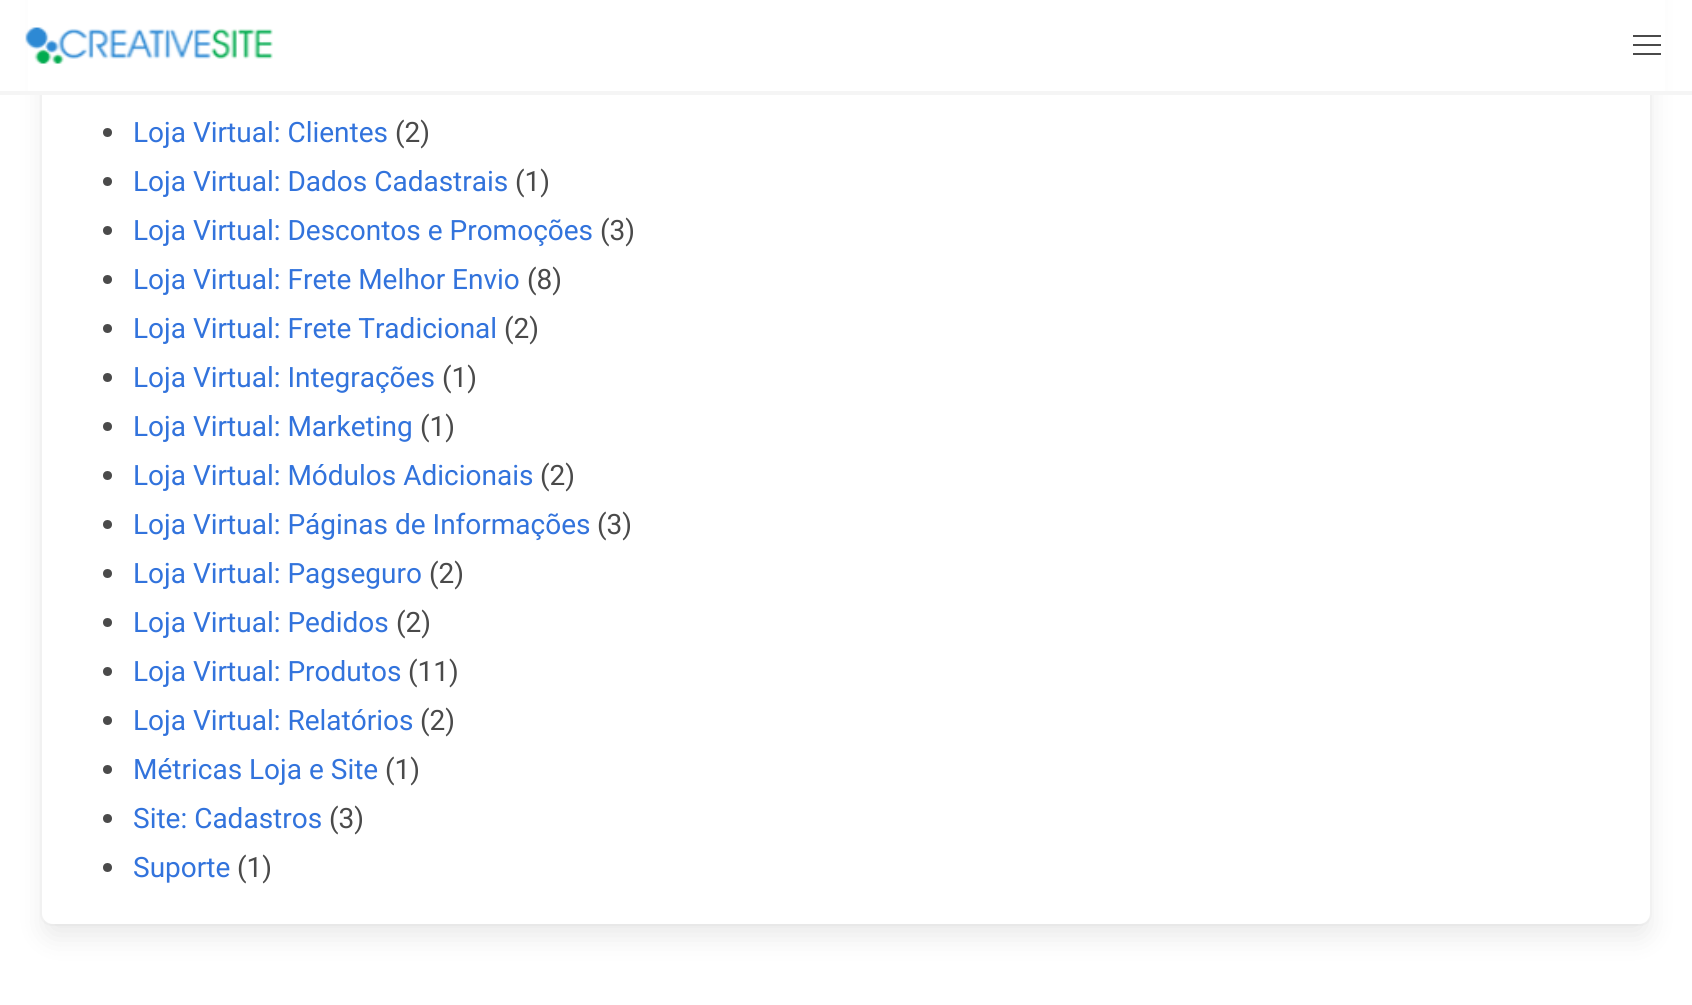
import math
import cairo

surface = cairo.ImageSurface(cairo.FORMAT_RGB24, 1692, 1005)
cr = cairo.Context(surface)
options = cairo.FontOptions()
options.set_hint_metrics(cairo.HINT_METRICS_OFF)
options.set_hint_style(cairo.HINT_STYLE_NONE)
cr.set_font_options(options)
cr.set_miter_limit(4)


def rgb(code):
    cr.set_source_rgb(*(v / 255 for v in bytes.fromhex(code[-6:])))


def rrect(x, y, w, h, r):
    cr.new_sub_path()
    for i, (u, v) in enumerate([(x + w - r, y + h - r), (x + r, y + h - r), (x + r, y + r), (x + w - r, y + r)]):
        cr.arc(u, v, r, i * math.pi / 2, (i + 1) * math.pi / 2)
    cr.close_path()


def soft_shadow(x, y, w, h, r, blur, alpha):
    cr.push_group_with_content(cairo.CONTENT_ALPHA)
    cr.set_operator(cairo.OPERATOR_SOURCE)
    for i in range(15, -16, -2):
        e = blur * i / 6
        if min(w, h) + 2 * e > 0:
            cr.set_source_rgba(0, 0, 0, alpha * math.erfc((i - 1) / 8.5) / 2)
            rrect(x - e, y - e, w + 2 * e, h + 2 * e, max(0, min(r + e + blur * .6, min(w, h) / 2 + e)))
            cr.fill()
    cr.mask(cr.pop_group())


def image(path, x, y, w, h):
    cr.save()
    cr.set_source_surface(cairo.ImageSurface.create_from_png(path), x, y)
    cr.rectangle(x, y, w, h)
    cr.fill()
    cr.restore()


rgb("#ffffff")
cr.paint()
rrect(41, -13, 1610, 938, 11)
rgb("#fafafa")
cr.stroke()
rgb("#0a0a0a")
soft_shadow(46, -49, 1601, 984, 7, 14, 0.1)
rgb("#ffffff")
rrect(42, -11, 1608, 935, 11)
cr.fill()
rgb("#f5f5f5")
cr.rectangle(0, 91, 1692, 4)
cr.fill()
rgb("#ffffff")
cr.rectangle(28, 0, 1637, 91)
cr.fill()
image("img/1.png", 25, 27, 248, 37)
for x, y, w, h, color in [
    (1633, 35, 28, 2, "#4a4a4a"),
    (1633, 44, 28, 2, "#4a4a4a"),
    (1633, 53, 28, 2, "#4a4a4a"),
]:
    rgb(color)
    cr.rectangle(x, y, w, h)
    cr.fill()
cr.arc(107.5, 132.5, 4.5, 0, 2 * math.pi)
cr.fill()
cr.arc(107.5, 181.5, 4.5, 0, 2 * math.pi)
cr.fill()
cr.arc(107.5, 230.5, 4.5, 0, 2 * math.pi)
cr.fill()
cr.arc(107.5, 279.5, 4.5, 0, 2 * math.pi)
cr.fill()
cr.arc(107.5, 328.5, 4.5, 0, 2 * math.pi)
cr.fill()
cr.arc(107.5, 377.5, 4.5, 0, 2 * math.pi)
cr.fill()
cr.arc(107.5, 426.5, 4.5, 0, 2 * math.pi)
cr.fill()
cr.arc(107.5, 475.5, 4.5, 0, 2 * math.pi)
cr.fill()
cr.arc(107.5, 524.5, 4.5, 0, 2 * math.pi)
cr.fill()
cr.arc(107.5, 573.5, 4.5, 0, 2 * math.pi)
cr.fill()
cr.arc(107.5, 622.5, 4.5, 0, 2 * math.pi)
cr.fill()
cr.arc(107.5, 671.5, 4.5, 0, 2 * math.pi)
cr.fill()
cr.arc(107.5, 720.5, 4.5, 0, 2 * math.pi)
cr.fill()
cr.arc(107.5, 769.5, 4.5, 0, 2 * math.pi)
cr.fill()
cr.arc(107.5, 818.5, 4.5, 0, 2 * math.pi)
cr.fill()
cr.arc(107.5, 867.5, 4.5, 0, 2 * math.pi)
cr.fill()
cr.select_font_face("Roboto")
cr.set_font_size(28)
rgb("#3273dc")
cr.move_to(133, 142)
cr.show_text("Loja Virtual: Clientes")
rgb("#4a4a4a")
cr.move_to(395, 142)
cr.show_text("(2)")
rgb("#3273dc")
cr.move_to(133, 191)
cr.show_text("Loja Virtual: Dados Cadastrais")
rgb("#4a4a4a")
cr.move_to(515, 191)
cr.show_text("(1)")
rgb("#3273dc")
cr.move_to(133, 240)
cr.show_text("Loja Virtual: Descontos e Promoções")
rgb("#4a4a4a")
cr.move_to(600, 240)
cr.show_text("(3)")
rgb("#3273dc")
cr.move_to(133, 289)
cr.show_text("Loja Virtual: Frete Melhor Envio")
rgb("#4a4a4a")
cr.move_to(527, 289)
cr.show_text("(8)")
rgb("#3273dc")
cr.move_to(133, 338)
cr.show_text("Loja Virtual: Frete Tradicional")
rgb("#4a4a4a")
cr.move_to(504, 338)
cr.show_text("(2)")
rgb("#3273dc")
cr.move_to(133, 387)
cr.show_text("Loja Virtual: Integrações")
rgb("#4a4a4a")
cr.move_to(442, 387)
cr.show_text("(1)")
rgb("#3273dc")
cr.move_to(133, 436)
cr.show_text("Loja Virtual: Marketing")
rgb("#4a4a4a")
cr.move_to(420, 436)
cr.show_text("(1)")
rgb("#3273dc")
cr.move_to(133, 485)
cr.show_text("Loja Virtual: Módulos Adicionais")
rgb("#4a4a4a")
cr.move_to(540, 485)
cr.show_text("(2)")
rgb("#3273dc")
cr.move_to(133, 534)
cr.show_text("Loja Virtual: Páginas de Informações")
rgb("#4a4a4a")
cr.move_to(597, 534)
cr.show_text("(3)")
rgb("#3273dc")
cr.move_to(133, 583)
cr.show_text("Loja Virtual: Pagseguro")
rgb("#4a4a4a")
cr.move_to(429, 583)
cr.show_text("(2)")
rgb("#3273dc")
cr.move_to(133, 632)
cr.show_text("Loja Virtual: Pedidos")
rgb("#4a4a4a")
cr.move_to(396, 632)
cr.show_text("(2)")
rgb("#3273dc")
cr.move_to(133, 681)
cr.show_text("Loja Virtual: Produtos")
rgb("#4a4a4a")
cr.move_to(408, 681)
cr.show_text("(11)")
rgb("#3273dc")
cr.move_to(133, 730)
cr.show_text("Loja Virtual: Relatórios")
rgb("#4a4a4a")
cr.move_to(420, 730)
cr.show_text("(2)")
rgb("#3273dc")
cr.move_to(133, 779)
cr.show_text("Métricas Loja e Site")
rgb("#4a4a4a")
cr.move_to(385, 779)
cr.show_text("(1)")
rgb("#3273dc")
cr.move_to(133, 828)
cr.show_text("Site: Cadastros")
rgb("#4a4a4a")
cr.move_to(329, 828)
cr.show_text("(3)")
rgb("#3273dc")
cr.move_to(133, 877)
cr.show_text("Suporte")
rgb("#4a4a4a")
cr.move_to(237, 877)
cr.show_text("(1)")
surface.write_to_png("page.png")
